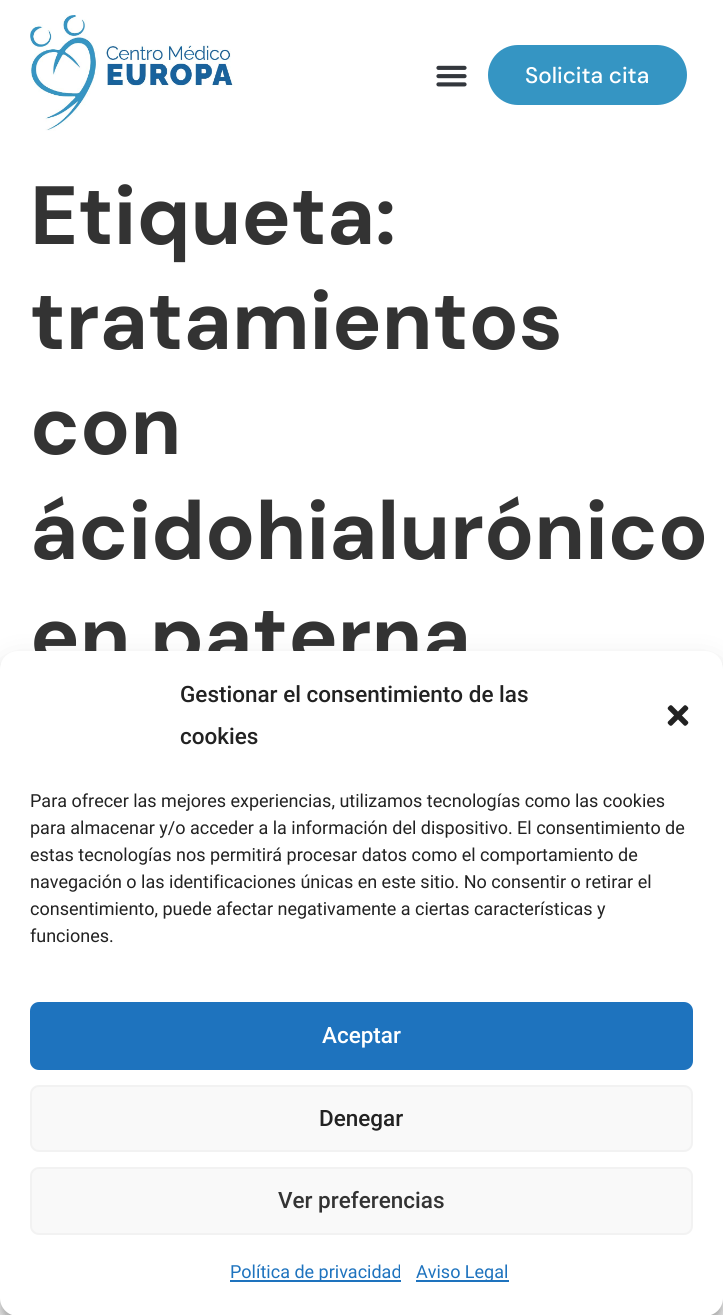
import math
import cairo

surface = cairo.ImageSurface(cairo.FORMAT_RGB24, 723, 1315)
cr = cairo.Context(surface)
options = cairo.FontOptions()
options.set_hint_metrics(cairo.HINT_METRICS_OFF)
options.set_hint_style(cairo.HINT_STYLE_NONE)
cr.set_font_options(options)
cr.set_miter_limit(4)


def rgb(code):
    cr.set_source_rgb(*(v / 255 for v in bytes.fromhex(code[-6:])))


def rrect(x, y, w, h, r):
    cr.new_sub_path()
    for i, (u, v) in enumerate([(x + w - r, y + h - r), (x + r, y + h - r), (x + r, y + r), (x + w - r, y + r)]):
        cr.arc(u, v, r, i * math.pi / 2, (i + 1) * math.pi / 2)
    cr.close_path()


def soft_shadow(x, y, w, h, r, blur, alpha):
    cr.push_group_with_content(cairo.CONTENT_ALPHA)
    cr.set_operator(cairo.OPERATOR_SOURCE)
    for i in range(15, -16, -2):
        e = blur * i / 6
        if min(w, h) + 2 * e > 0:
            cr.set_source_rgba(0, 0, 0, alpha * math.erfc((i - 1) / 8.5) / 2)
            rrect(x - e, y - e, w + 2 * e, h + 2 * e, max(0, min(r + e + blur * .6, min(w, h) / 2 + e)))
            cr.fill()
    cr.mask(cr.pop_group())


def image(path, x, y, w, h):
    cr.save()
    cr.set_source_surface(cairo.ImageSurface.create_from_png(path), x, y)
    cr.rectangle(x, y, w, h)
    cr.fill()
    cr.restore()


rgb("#ffffff")
cr.paint()
image("img/1.png", 30, 15, 205, 116)
image("img/2.png", 436, 65, 31, 22)
rgb("#3595c3")
rrect(488, 45, 199, 60, 30)
cr.fill()
rgb("#000000")
soft_shadow(0, 660, 723, 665, 18, 4.5, 0.23)
soft_shadow(0, 666, 723, 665, 18, 15, 0.19)
cr.select_font_face("DM Sans Medium")
cr.set_font_size(22.5)
rgb("#ffffff")
cr.move_to(525, 83)
cr.show_text("Solicita cita")
cr.select_font_face("DM Sans", cairo.FONT_SLANT_NORMAL, cairo.FONT_WEIGHT_BOLD)
cr.set_font_size(82.5)
rgb("#333333")
for x, y, s in [
    (30, 244, "Etiqueta:"),
    (30, 349, "tratamientos"),
    (30, 454, "con"),
    (30, 559, "ácidohialurónico"),
    (30, 664, "en paterna"),
]:
    cr.move_to(x, y)
    cr.show_text(s)
rgb("#ffffff")
rrect(0, 651, 723, 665, 18)
cr.fill()
cr.select_font_face("Roboto Medium")
cr.set_font_size(22.5)
rgb("#222222")
cr.move_to(180, 702)
cr.show_text("Gestionar el consentimiento de las")
cr.move_to(180, 744)
cr.show_text("cookies")
image("img/3.png", 667, 705, 22, 21)
cr.select_font_face("Roboto")
cr.set_font_size(18)
for x, y, s in [
    (30, 807, "Para ofrecer las mejores experiencias, utilizamos tecnologías como las cookies"),
    (30, 834, "para almacenar y/o acceder a la información del dispositivo. El consentimiento de"),
    (30, 861, "estas tecnologías nos permitirá procesar datos como el comportamiento de"),
    (30, 888, "navegación o las identificaciones únicas en este sitio. No consentir o retirar el"),
    (30, 915, "consentimiento, puede afectar negativamente a ciertas características y"),
    (30, 942, "funciones."),
]:
    cr.move_to(x, y)
    cr.show_text(s)
rgb("#1e73be")
rrect(31, 1003, 661, 66, 8)
cr.fill_preserve()
cr.stroke()
cr.select_font_face("Roboto Medium")
cr.set_font_size(22.5)
rgb("#ffffff")
cr.move_to(322, 1043)
cr.show_text("Aceptar")
rgb("#f9f9f9")
rrect(31, 1086, 661, 65, 8)
cr.fill_preserve()
rgb("#f2f2f2")
cr.stroke()
rgb("#222222")
cr.move_to(319, 1126)
cr.show_text("Denegar")
rgb("#f9f9f9")
rrect(31, 1168, 661, 66, 8)
cr.fill_preserve()
rgb("#f2f2f2")
cr.stroke()
rgb("#333333")
cr.move_to(278, 1208)
cr.show_text("Ver preferencias")
rgb("#1e73be")
cr.rectangle(230, 1280, 171, 2)
cr.fill()
cr.select_font_face("Roboto")
cr.set_font_size(18)
cr.move_to(230, 1278)
cr.show_text("Política de privacidad")
cr.rectangle(416, 1280, 93, 2)
cr.fill()
cr.move_to(416, 1278)
cr.show_text("Aviso Legal")
surface.write_to_png("page.png")
